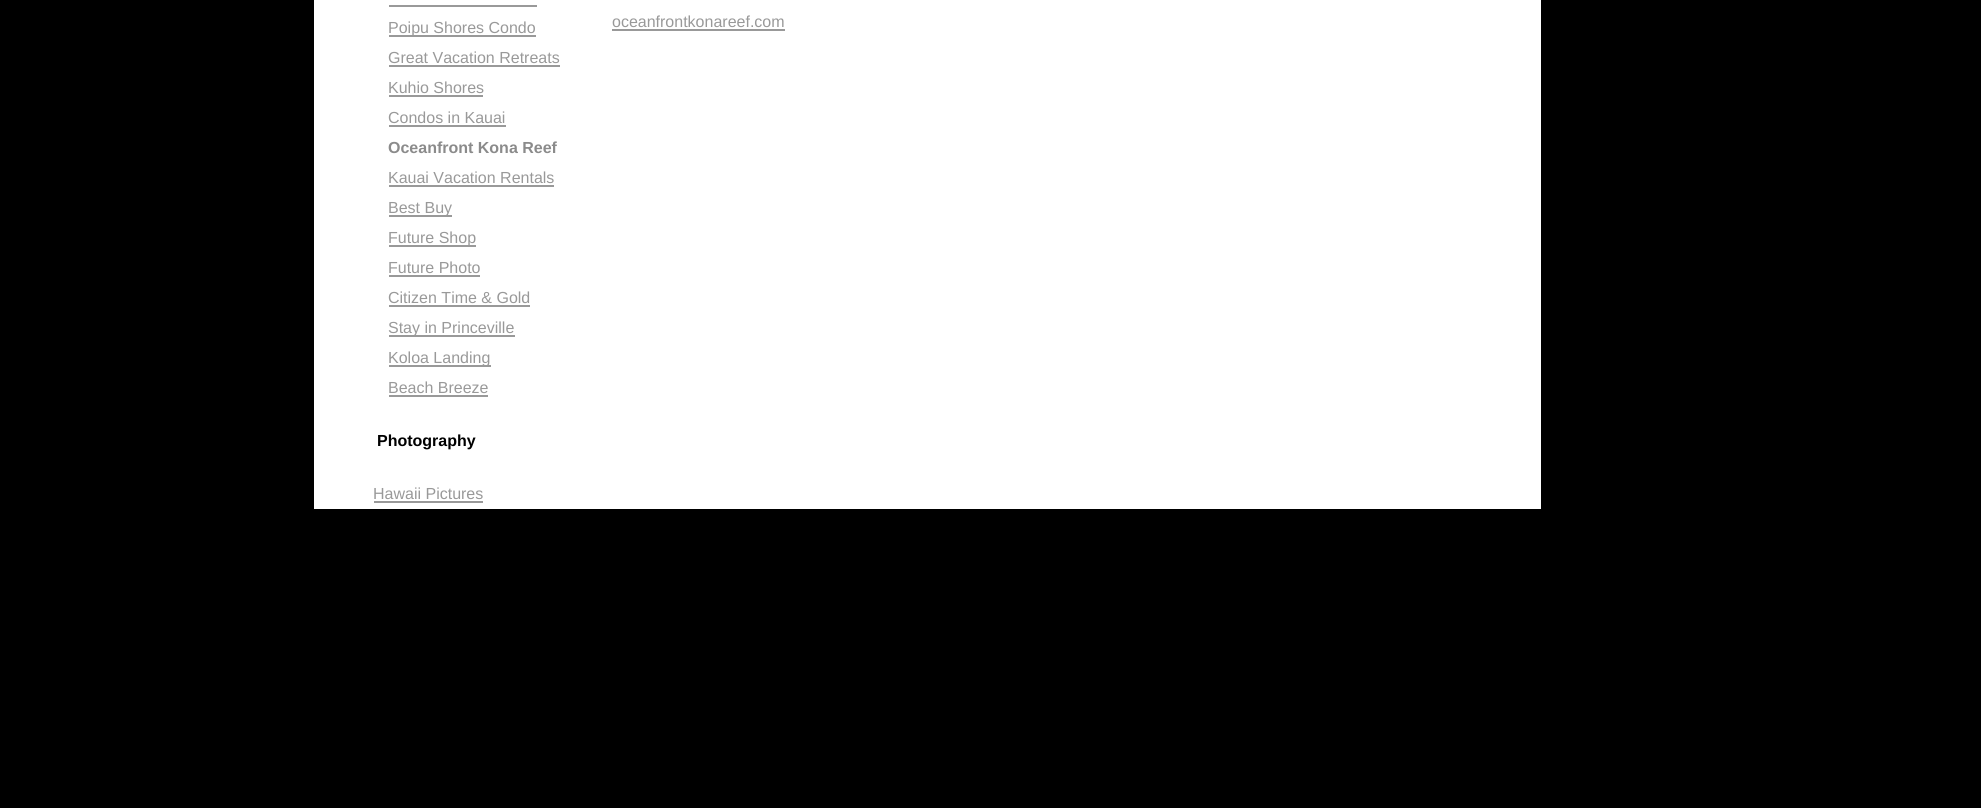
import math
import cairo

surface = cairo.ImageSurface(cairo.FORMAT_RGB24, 1981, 808)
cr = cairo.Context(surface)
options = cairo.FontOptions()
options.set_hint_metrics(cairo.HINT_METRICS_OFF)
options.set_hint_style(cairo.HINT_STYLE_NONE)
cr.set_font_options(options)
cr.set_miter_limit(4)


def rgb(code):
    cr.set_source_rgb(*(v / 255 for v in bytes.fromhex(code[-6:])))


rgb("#000000")
cr.paint()
for x, y, w, h, color in [
    (314, 0, 1227, 509, "#ffffff"),
    (389, 5, 148, 2, "#999999"),
    (389, 35, 147, 2, "#999999"),
    (389, 65, 171, 2, "#999999"),
    (389, 95, 94, 2, "#999999"),
    (389, 125, 117, 2, "#999999"),
    (389, 185, 165, 2, "#999999"),
    (389, 215, 63, 2, "#999999"),
    (389, 245, 87, 2, "#999999"),
    (389, 275, 91, 2, "#999999"),
    (389, 305, 141, 2, "#999999"),
    (389, 335, 126, 2, "#999999"),
    (389, 365, 102, 2, "#999999"),
    (389, 395, 99, 2, "#999999"),
    (374, 501, 109, 2, "#999999"),
    (612, 29, 173, 2, "#999999"),
]:
    rgb(color)
    cr.rectangle(x, y, w, h)
    cr.fill()
cr.select_font_face("Liberation Sans")
cr.set_font_size(16)
for x, y, s in [
    (388, 33, "Poipu Shores Condo"),
    (388, 63, "Great Vacation Retreats"),
    (388, 93, "Kuhio Shores"),
    (388, 123, "Condos in Kauai"),
]:
    cr.move_to(x, y)
    cr.show_text(s)
cr.select_font_face("Liberation Sans", cairo.FONT_SLANT_NORMAL, cairo.FONT_WEIGHT_BOLD)
rgb("#8b8b8b")
cr.move_to(388, 153)
cr.show_text("Oceanfront Kona Reef")
cr.select_font_face("Liberation Sans")
rgb("#999999")
for x, y, s in [
    (388, 183, "Kauai Vacation Rentals"),
    (388, 213, "Best Buy"),
    (388, 243, "Future Shop"),
    (388, 273, "Future Photo"),
    (388, 303, "Citizen Time & Gold"),
    (388, 333, "Stay in Princeville"),
    (388, 363, "Koloa Landing"),
    (388, 393, "Beach Breeze"),
]:
    cr.move_to(x, y)
    cr.show_text(s)
cr.select_font_face("Liberation Sans", cairo.FONT_SLANT_NORMAL, cairo.FONT_WEIGHT_BOLD)
rgb("#000000")
cr.move_to(377, 446)
cr.show_text("Photography")
cr.select_font_face("Liberation Sans")
rgb("#999999")
cr.move_to(373, 499)
cr.show_text("Hawaii Pictures")
cr.move_to(612, 27)
cr.show_text("oceanfrontkonareef.com")
surface.write_to_png("page.png")
